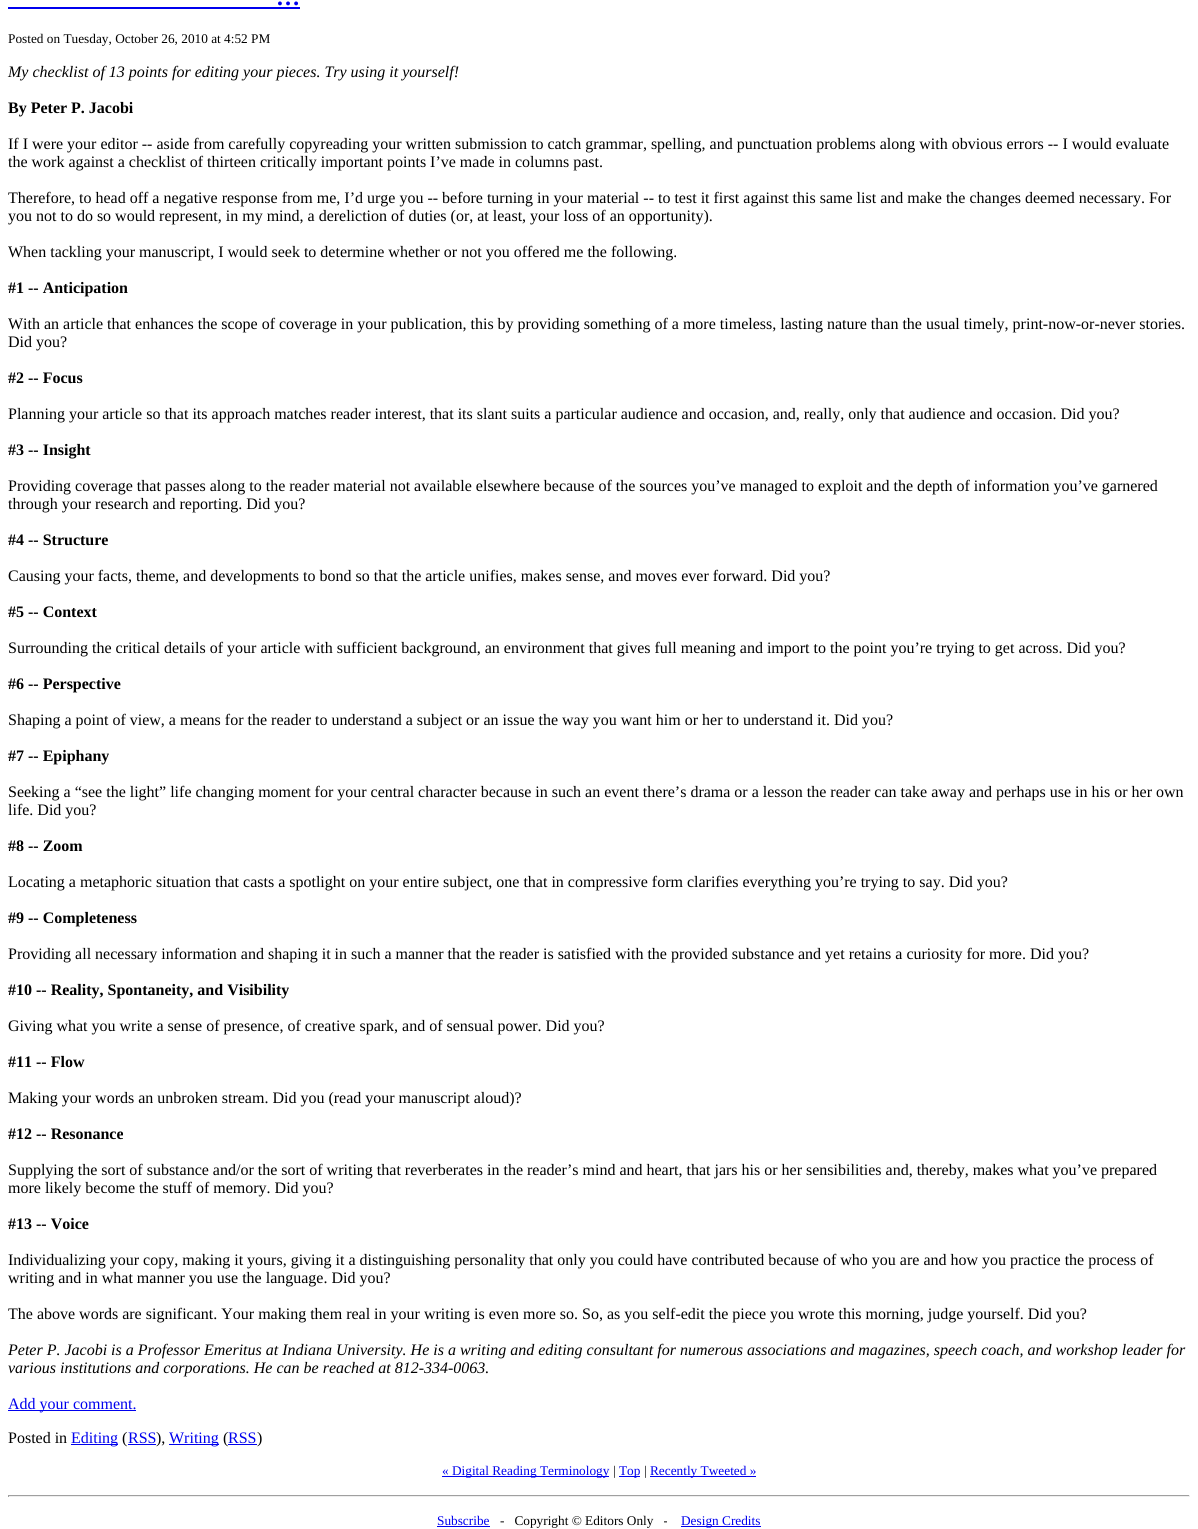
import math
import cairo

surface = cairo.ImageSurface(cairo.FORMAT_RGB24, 1198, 1529)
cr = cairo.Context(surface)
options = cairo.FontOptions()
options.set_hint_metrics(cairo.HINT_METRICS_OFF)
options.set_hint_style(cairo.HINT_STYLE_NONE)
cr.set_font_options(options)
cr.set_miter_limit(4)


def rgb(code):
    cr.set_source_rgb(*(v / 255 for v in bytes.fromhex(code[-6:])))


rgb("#ffffff")
cr.paint()
for x, y, w, h, color in [
    (8, 7, 292, 2, "#0000ee"),
    (8, 1410, 128, 1, "#0000ee"),
    (71, 1444, 47, 1, "#0000ee"),
    (128, 1444, 28, 1, "#0000ee"),
    (169, 1444, 50, 1, "#0000ee"),
    (228, 1444, 29, 1, "#0000ee"),
    (442, 1476, 167, 1, "#0000ee"),
    (619, 1476, 21, 1, "#0000ee"),
    (650, 1476, 106, 1, "#0000ee"),
    (8, 1495, 1182, 1, "#9f9f9f"),
    (1189, 1495, 1, 2, "#eeeeee"),
    (8, 1496, 1182, 1, "#eeeeee"),
    (8, 1495, 1, 2, "#9f9f9f"),
    (437, 1526, 53, 1, "#0000ee"),
    (681, 1526, 80, 1, "#0000ee"),
]:
    rgb(color)
    cr.rectangle(x, y, w, h)
    cr.fill()
cr.select_font_face("Liberation Serif", cairo.FONT_SLANT_NORMAL, cairo.FONT_WEIGHT_BOLD)
cr.set_font_size(24)
cr.move_to(276, 5)
cr.show_text("…")
cr.select_font_face("Liberation Serif")
cr.set_font_size(13.3)
rgb("#000000")
cr.move_to(8, 43)
cr.show_text("Posted on Tuesday, October 26, 2010 at 4:52 PM")
cr.select_font_face("Liberation Serif", cairo.FONT_SLANT_ITALIC)
cr.set_font_size(16)
cr.move_to(8, 77)
cr.show_text("My checklist of 13 points for editing your pieces. Try using it yourself!")
cr.select_font_face("Liberation Serif", cairo.FONT_SLANT_NORMAL, cairo.FONT_WEIGHT_BOLD)
cr.move_to(8, 113)
cr.show_text("By Peter P. Jacobi")
cr.select_font_face("Liberation Serif")
for x, y, s in [
    (8, 149, "If I were your editor -- aside from carefully copyreading your written submission to catch grammar, spelling, and punctuation problems along with obvious errors -- I would evaluate"),
    (8, 167, "the work against a checklist of thirteen critically important points I’ve made in columns past."),
    (8, 203, "Therefore, to head off a negative response from me, I’d urge you -- before turning in your material -- to test it first against this same list and make the changes deemed necessary. For"),
    (8, 221, "you not to do so would represent, in my mind, a dereliction of duties (or, at least, your loss of an opportunity)."),
    (8, 257, "When tackling your manuscript, I would seek to determine whether or not you offered me the following."),
]:
    cr.move_to(x, y)
    cr.show_text(s)
cr.select_font_face("Liberation Serif", cairo.FONT_SLANT_NORMAL, cairo.FONT_WEIGHT_BOLD)
cr.move_to(8, 293)
cr.show_text("#1 -- Anticipation")
cr.select_font_face("Liberation Serif")
cr.move_to(8, 329)
cr.show_text("With an article that enhances the scope of coverage in your publication, this by providing something of a more timeless, lasting nature than the usual timely, print-now-or-never stories.")
cr.move_to(8, 347)
cr.show_text("Did you?")
cr.select_font_face("Liberation Serif", cairo.FONT_SLANT_NORMAL, cairo.FONT_WEIGHT_BOLD)
cr.move_to(8, 383)
cr.show_text("#2 -- Focus")
cr.select_font_face("Liberation Serif")
cr.move_to(8, 419)
cr.show_text("Planning your article so that its approach matches reader interest, that its slant suits a particular audience and occasion, and, really, only that audience and occasion. Did you?")
cr.select_font_face("Liberation Serif", cairo.FONT_SLANT_NORMAL, cairo.FONT_WEIGHT_BOLD)
cr.move_to(8, 455)
cr.show_text("#3 -- Insight")
cr.select_font_face("Liberation Serif")
cr.move_to(8, 491)
cr.show_text("Providing coverage that passes along to the reader material not available elsewhere because of the sources you’ve managed to exploit and the depth of information you’ve garnered")
cr.move_to(8, 509)
cr.show_text("through your research and reporting. Did you?")
cr.select_font_face("Liberation Serif", cairo.FONT_SLANT_NORMAL, cairo.FONT_WEIGHT_BOLD)
cr.move_to(8, 545)
cr.show_text("#4 -- Structure")
cr.select_font_face("Liberation Serif")
cr.move_to(8, 581)
cr.show_text("Causing your facts, theme, and developments to bond so that the article unifies, makes sense, and moves ever forward. Did you?")
cr.select_font_face("Liberation Serif", cairo.FONT_SLANT_NORMAL, cairo.FONT_WEIGHT_BOLD)
cr.move_to(8, 617)
cr.show_text("#5 -- Context")
cr.select_font_face("Liberation Serif")
cr.move_to(8, 653)
cr.show_text("Surrounding the critical details of your article with sufficient background, an environment that gives full meaning and import to the point you’re trying to get across. Did you?")
cr.select_font_face("Liberation Serif", cairo.FONT_SLANT_NORMAL, cairo.FONT_WEIGHT_BOLD)
cr.move_to(8, 689)
cr.show_text("#6 -- Perspective")
cr.select_font_face("Liberation Serif")
cr.move_to(8, 725)
cr.show_text("Shaping a point of view, a means for the reader to understand a subject or an issue the way you want him or her to understand it. Did you?")
cr.select_font_face("Liberation Serif", cairo.FONT_SLANT_NORMAL, cairo.FONT_WEIGHT_BOLD)
cr.move_to(8, 761)
cr.show_text("#7 -- Epiphany")
cr.select_font_face("Liberation Serif")
cr.move_to(8, 797)
cr.show_text("Seeking a “see the light” life changing moment for your central character because in such an event there’s drama or a lesson the reader can take away and perhaps use in his or her own")
cr.move_to(8, 815)
cr.show_text("life. Did you?")
cr.select_font_face("Liberation Serif", cairo.FONT_SLANT_NORMAL, cairo.FONT_WEIGHT_BOLD)
cr.move_to(8, 851)
cr.show_text("#8 -- Zoom")
cr.select_font_face("Liberation Serif")
cr.move_to(8, 887)
cr.show_text("Locating a metaphoric situation that casts a spotlight on your entire subject, one that in compressive form clarifies everything you’re trying to say. Did you?")
cr.select_font_face("Liberation Serif", cairo.FONT_SLANT_NORMAL, cairo.FONT_WEIGHT_BOLD)
cr.move_to(8, 923)
cr.show_text("#9 -- Completeness")
cr.select_font_face("Liberation Serif")
cr.move_to(8, 959)
cr.show_text("Providing all necessary information and shaping it in such a manner that the reader is satisfied with the provided substance and yet retains a curiosity for more. Did you?")
cr.select_font_face("Liberation Serif", cairo.FONT_SLANT_NORMAL, cairo.FONT_WEIGHT_BOLD)
cr.move_to(8, 995)
cr.show_text("#10 -- Reality, Spontaneity, and Visibility")
cr.select_font_face("Liberation Serif")
cr.move_to(8, 1031)
cr.show_text("Giving what you write a sense of presence, of creative spark, and of sensual power. Did you?")
cr.select_font_face("Liberation Serif", cairo.FONT_SLANT_NORMAL, cairo.FONT_WEIGHT_BOLD)
cr.move_to(8, 1067)
cr.show_text("#11 -- Flow")
cr.select_font_face("Liberation Serif")
cr.move_to(8, 1103)
cr.show_text("Making your words an unbroken stream. Did you (read your manuscript aloud)?")
cr.select_font_face("Liberation Serif", cairo.FONT_SLANT_NORMAL, cairo.FONT_WEIGHT_BOLD)
cr.move_to(8, 1139)
cr.show_text("#12 -- Resonance")
cr.select_font_face("Liberation Serif")
cr.move_to(8, 1175)
cr.show_text("Supplying the sort of substance and/or the sort of writing that reverberates in the reader’s mind and heart, that jars his or her sensibilities and, thereby, makes what you’ve prepared")
cr.move_to(8, 1193)
cr.show_text("more likely become the stuff of memory. Did you?")
cr.select_font_face("Liberation Serif", cairo.FONT_SLANT_NORMAL, cairo.FONT_WEIGHT_BOLD)
cr.move_to(8, 1229)
cr.show_text("#13 -- Voice")
cr.select_font_face("Liberation Serif")
for x, y, s in [
    (8, 1265, "Individualizing your copy, making it yours, giving it a distinguishing personality that only you could have contributed because of who you are and how you practice the process of"),
    (8, 1283, "writing and in what manner you use the language. Did you?"),
    (8, 1319, "The above words are significant. Your making them real in your writing is even more so. So, as you self-edit the piece you wrote this morning, judge yourself. Did you?"),
]:
    cr.move_to(x, y)
    cr.show_text(s)
cr.select_font_face("Liberation Serif", cairo.FONT_SLANT_ITALIC)
cr.move_to(8, 1355)
cr.show_text("Peter P. Jacobi is a Professor Emeritus at Indiana University. He is a writing and editing consultant for numerous associations and magazines, speech coach, and workshop leader for")
cr.move_to(8, 1373)
cr.show_text("various institutions and corporations. He can be reached at 812-334-0063.")
cr.select_font_face("Liberation Serif")
rgb("#0000ee")
cr.move_to(8, 1409)
cr.show_text("Add your comment.")
rgb("#000000")
cr.move_to(8, 1443)
cr.show_text("Posted in")
rgb("#0000ee")
cr.move_to(71, 1443)
cr.show_text("Editing")
rgb("#000000")
cr.move_to(122, 1443)
cr.show_text("(")
rgb("#0000ee")
cr.move_to(128, 1443)
cr.show_text("RSS")
rgb("#000000")
cr.move_to(156, 1443)
cr.show_text("),")
rgb("#0000ee")
cr.move_to(169, 1443)
cr.show_text("Writing")
rgb("#000000")
cr.move_to(223, 1443)
cr.show_text("(")
rgb("#0000ee")
cr.move_to(228, 1443)
cr.show_text("RSS")
rgb("#000000")
cr.move_to(257, 1443)
cr.show_text(")")
cr.set_font_size(13.3)
rgb("#0000ee")
cr.move_to(442, 1475)
cr.show_text("« Digital Reading Terminology")
rgb("#000000")
cr.move_to(613, 1475)
cr.show_text("|")
rgb("#0000ee")
cr.move_to(619, 1475)
cr.show_text("Top")
rgb("#000000")
cr.move_to(644, 1475)
cr.show_text("|")
rgb("#0000ee")
cr.move_to(650, 1475)
cr.show_text("Recently Tweeted »")
cr.move_to(437, 1525)
cr.show_text("Subscribe")
rgb("#000000")
cr.move_to(500, 1525)
cr.show_text("-   Copyright © Editors Only   -")
rgb("#0000ee")
cr.move_to(681, 1525)
cr.show_text("Design Credits")
surface.write_to_png("page.png")
